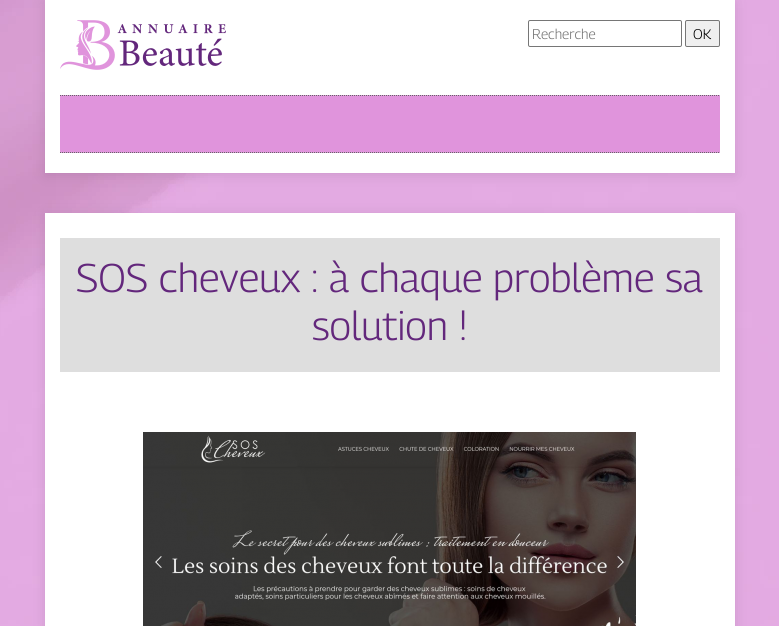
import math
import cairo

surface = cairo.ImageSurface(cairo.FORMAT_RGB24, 779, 626)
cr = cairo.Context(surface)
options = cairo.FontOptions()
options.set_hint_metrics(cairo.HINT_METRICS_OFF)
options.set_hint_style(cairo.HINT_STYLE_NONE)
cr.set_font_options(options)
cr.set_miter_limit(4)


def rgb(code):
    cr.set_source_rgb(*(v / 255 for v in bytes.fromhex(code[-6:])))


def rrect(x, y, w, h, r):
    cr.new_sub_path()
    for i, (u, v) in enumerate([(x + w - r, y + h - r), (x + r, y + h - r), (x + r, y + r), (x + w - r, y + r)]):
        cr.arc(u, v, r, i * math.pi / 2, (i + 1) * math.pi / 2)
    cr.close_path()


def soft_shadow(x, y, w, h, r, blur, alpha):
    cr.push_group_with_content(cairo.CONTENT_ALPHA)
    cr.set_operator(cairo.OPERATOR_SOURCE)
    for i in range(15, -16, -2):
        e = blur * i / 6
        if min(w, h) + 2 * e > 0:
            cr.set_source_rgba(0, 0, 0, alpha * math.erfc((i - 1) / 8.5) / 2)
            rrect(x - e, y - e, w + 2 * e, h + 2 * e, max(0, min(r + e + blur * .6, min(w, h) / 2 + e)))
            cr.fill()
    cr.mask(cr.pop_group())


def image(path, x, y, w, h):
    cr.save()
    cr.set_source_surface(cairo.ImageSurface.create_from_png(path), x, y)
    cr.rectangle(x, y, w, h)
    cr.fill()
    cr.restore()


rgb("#ffffff")
cr.paint()
image("img/1.png", 0, 0, 779, 626)
rgb("#000000")
soft_shadow(45, 2, 690, 173, 0, 6.5, 0.1)
rgb("#ffffff")
cr.rectangle(45, 0, 690, 173)
cr.fill()
image("img/2.png", 60, 20, 166, 50)
rrect(528.5, 20.5, 153, 26, 1.5)
rgb("#767676")
cr.set_line_width(1)
cr.stroke()
rgb("#efefef")
rrect(685.5, 20.5, 34, 26, 1.5)
cr.fill_preserve()
rgb("#767676")
cr.stroke()
rgb("#e094dc")
cr.rectangle(60, 95, 660, 58)
cr.fill()
cr.new_path()
cr.move_to(60, 95.5)
cr.line_to(720, 95.5)
rgb("#666666")
cr.set_dash([1, 1])
cr.stroke()
cr.new_path()
cr.move_to(60, 152.5)
cr.line_to(720, 152.5)
cr.stroke()
rgb("#000000")
soft_shadow(45, 215, 690, 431, 0, 6.5, 0.1)
rgb("#ffffff")
cr.rectangle(45, 213, 690, 413)
cr.fill()
rgb("#dedede")
cr.rectangle(60, 238, 660, 134)
cr.fill()
image("img/3.png", 143, 432, 493, 194)
cr.select_font_face("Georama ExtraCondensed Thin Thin")
cr.set_font_size(14)
rgb("#757575")
cr.move_to(532, 39)
cr.show_text("Recherche")
rgb("#000000")
cr.move_to(693, 39)
cr.show_text("OK")
cr.set_font_size(40)
rgb("#63277c")
cr.move_to(76, 292)
cr.show_text("SOS cheveux : à chaque problème sa")
cr.move_to(312, 340)
cr.show_text("solution !")
surface.write_to_png("page.png")
